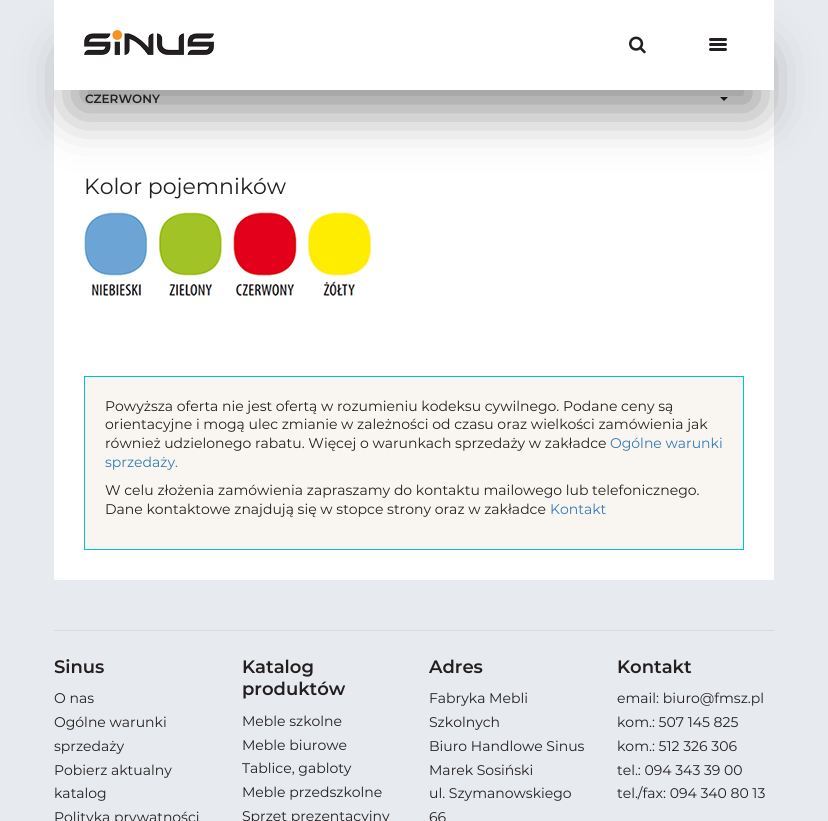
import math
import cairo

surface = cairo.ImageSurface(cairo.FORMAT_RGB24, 828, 821)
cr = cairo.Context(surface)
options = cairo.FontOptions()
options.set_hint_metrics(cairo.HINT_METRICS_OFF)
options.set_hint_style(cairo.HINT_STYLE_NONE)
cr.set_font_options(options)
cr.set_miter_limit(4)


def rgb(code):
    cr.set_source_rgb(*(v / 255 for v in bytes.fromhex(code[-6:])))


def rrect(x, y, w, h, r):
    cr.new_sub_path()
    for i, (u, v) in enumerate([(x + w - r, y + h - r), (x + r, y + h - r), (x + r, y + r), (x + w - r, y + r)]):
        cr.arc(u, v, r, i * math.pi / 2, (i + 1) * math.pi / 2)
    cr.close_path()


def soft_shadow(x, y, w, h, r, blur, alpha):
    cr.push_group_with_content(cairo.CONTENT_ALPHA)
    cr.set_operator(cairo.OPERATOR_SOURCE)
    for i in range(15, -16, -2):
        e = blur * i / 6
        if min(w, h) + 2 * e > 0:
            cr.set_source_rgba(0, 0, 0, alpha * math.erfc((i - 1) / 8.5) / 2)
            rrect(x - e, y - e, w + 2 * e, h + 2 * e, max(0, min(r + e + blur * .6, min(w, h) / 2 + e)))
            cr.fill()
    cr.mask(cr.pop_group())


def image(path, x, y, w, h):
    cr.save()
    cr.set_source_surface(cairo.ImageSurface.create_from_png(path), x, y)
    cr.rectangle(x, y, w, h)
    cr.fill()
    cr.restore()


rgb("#e7eaee")
cr.paint()
rgb("#ffffff")
cr.rectangle(54, 90, 720, 490)
cr.fill()
rgb("#231f20")
cr.new_path()
cr.move_to(720, 97)
cr.line_to(728, 97)
cr.line_to(724, 101)
cr.close_path()
cr.fill()
rgb("#000000")
soft_shadow(75, 57, 682, 52, 0, 26, 0.46)
rgb("#ffffff")
cr.rectangle(54, 0, 720, 90)
cr.fill()
image("img/1.png", 84, 30, 130, 25)
image("img/2.png", 629, 36, 17, 18)
rgb("#231f20")
rrect(709, 43, 18, 3, 1.5)
cr.fill()
rrect(709, 38, 18, 3, 1.5)
cr.fill()
rrect(709, 48, 18, 3, 1.5)
cr.fill()
image("img/3.png", 84, 212, 287, 84)
rgb("#f9f6f2")
cr.rectangle(84.5, 376.5, 659, 173)
cr.fill_preserve()
rgb("#00c4c6")
cr.set_line_width(1)
cr.stroke()
rgb("#dadada")
cr.rectangle(54, 630, 720, 1)
cr.fill()
cr.select_font_face("Montserrat SemiBold")
cr.set_font_size(12)
rgb("#231f20")
cr.move_to(85, 103)
cr.show_text("CZERWONY")
cr.select_font_face("Montserrat")
cr.set_font_size(22)
cr.move_to(84, 194)
cr.show_text("Kolor pojemników")
cr.set_font_size(14)
for x, y, s in [
    (105, 411, "Powyższa oferta nie jest ofertą w rozumieniu kodeksu cywilnego. Podane ceny są"),
    (105, 429, "orientacyjne i mogą ulec zmianie w zależności od czasu oraz wielkości zamówienia jak"),
    (105, 448, "również udzielonego rabatu. Więcej o warunkach sprzedaży w zakładce"),
]:
    cr.move_to(x, y)
    cr.show_text(s)
rgb("#337ab7")
cr.move_to(610, 448)
cr.show_text("Ogólne warunki")
cr.move_to(105, 467)
cr.show_text("sprzedaży.")
rgb("#231f20")
cr.move_to(105, 495)
cr.show_text("W celu złożenia zamówienia zapraszamy do kontaktu mailowego lub telefonicznego.")
cr.move_to(105, 514)
cr.show_text("Dane kontaktowe znajdują się w stopce strony oraz w zakładce")
rgb("#337ab7")
cr.move_to(550, 514)
cr.show_text("Kontakt")
cr.select_font_face("Montserrat SemiBold")
cr.set_font_size(18)
rgb("#231f20")
cr.move_to(54, 673)
cr.show_text("Sinus")
cr.select_font_face("Montserrat")
cr.set_font_size(14)
for x, y, s in [
    (54, 703, "O nas"),
    (54, 727, "Ogólne warunki"),
    (54, 751, "sprzedaży"),
    (54, 775, "Pobierz aktualny"),
    (54, 798, "katalog"),
    (54, 822, "Polityka prywatności"),
]:
    cr.move_to(x, y)
    cr.show_text(s)
cr.select_font_face("Montserrat SemiBold")
cr.set_font_size(18)
cr.move_to(242, 673)
cr.show_text("Katalog")
cr.move_to(242, 695)
cr.show_text("produktów")
cr.select_font_face("Montserrat")
cr.set_font_size(14)
for x, y, s in [
    (242, 726, "Meble szkolne"),
    (242, 750, "Meble biurowe"),
    (242, 773, "Tablice, gabloty"),
    (242, 797, "Meble przedszkolne"),
    (242, 821, "Sprzęt prezentacyjny"),
]:
    cr.move_to(x, y)
    cr.show_text(s)
cr.select_font_face("Montserrat SemiBold")
cr.set_font_size(18)
cr.move_to(429, 673)
cr.show_text("Adres")
cr.select_font_face("Montserrat")
cr.set_font_size(14)
for x, y, s in [
    (429, 703, "Fabryka Mebli"),
    (429, 727, "Szkolnych"),
    (429, 751, "Biuro Handlowe Sinus"),
    (429, 775, "Marek Sosiński"),
    (429, 798, "ul. Szymanowskiego"),
    (429, 822, "66"),
]:
    cr.move_to(x, y)
    cr.show_text(s)
cr.select_font_face("Montserrat SemiBold")
cr.set_font_size(18)
cr.move_to(617, 673)
cr.show_text("Kontakt")
cr.select_font_face("Montserrat")
cr.set_font_size(14)
for x, y, s in [
    (617, 703, "email: biuro@fmsz.pl"),
    (617, 727, "kom.: 507 145 825"),
    (617, 751, "kom.: 512 326 306"),
    (617, 775, "tel.: 094 343 39 00"),
    (617, 798, "tel./fax: 094 340 80 13"),
]:
    cr.move_to(x, y)
    cr.show_text(s)
surface.write_to_png("page.png")
